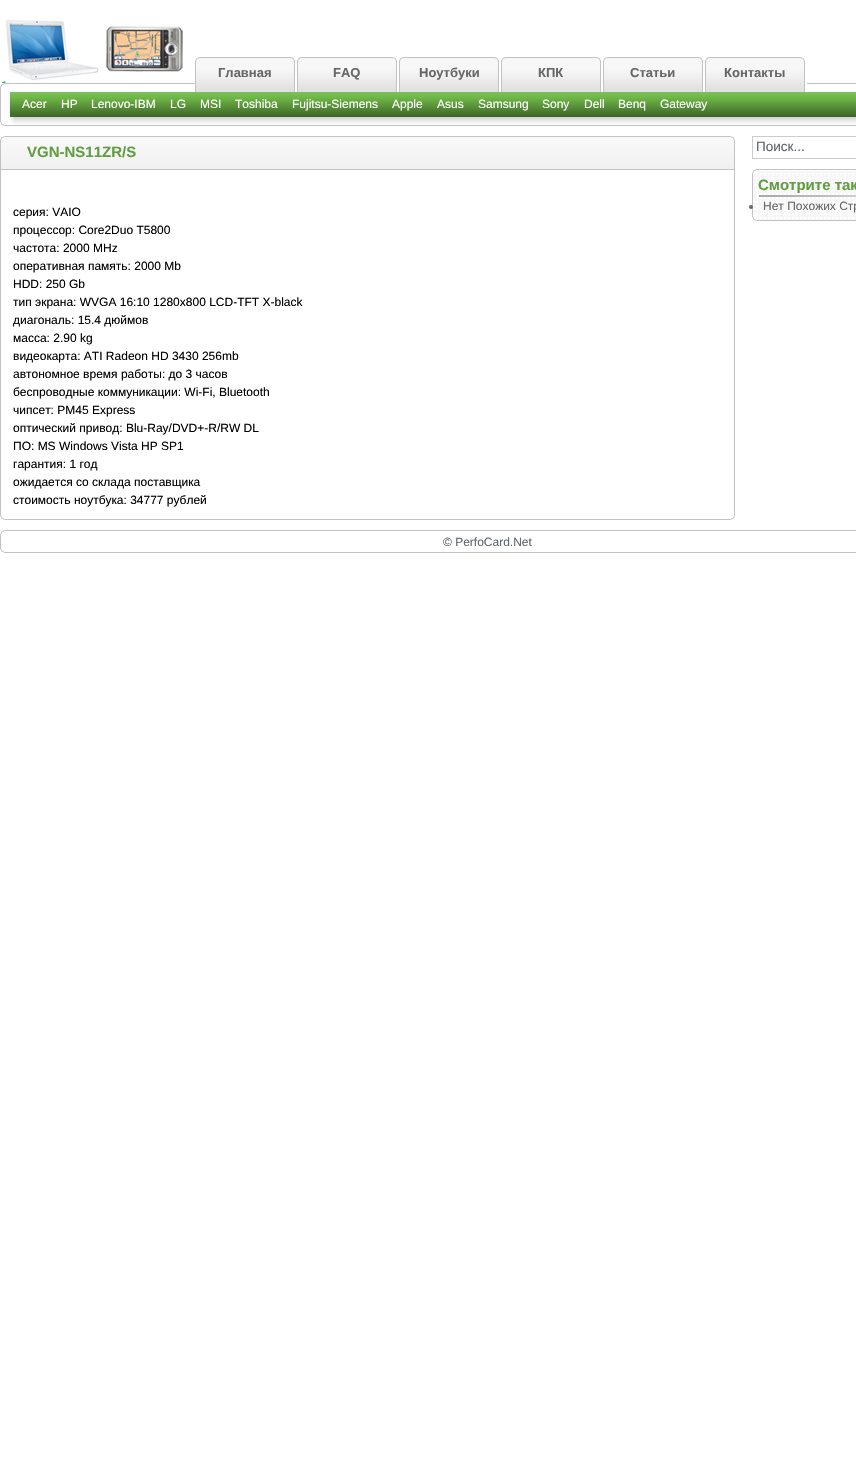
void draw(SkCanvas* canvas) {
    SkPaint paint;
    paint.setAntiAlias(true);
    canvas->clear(0xFFFFFFFF);
    canvas->drawImageRect(SkImages::DeferredFromEncodedData(SkData::MakeFromFileName("img1.png")), SkRect::MakeXYWH(2, 19, 181, 64), SkSamplingOptions());
    canvas->drawImageRect(SkImages::DeferredFromEncodedData(SkData::MakeFromFileName("img3.png")), SkRect::MakeXYWH(15, 83, 841, 43), SkSamplingOptions());
    paint.setColor(0xFFFFFFFF);
    canvas->drawRect(SkRect::MakeXYWH(295, 83, 512, 9), paint);
    canvas->drawImageRect(SkImages::DeferredFromEncodedData(SkData::MakeFromFileName("img2.png")), SkRect::MakeXYWH(195, 57, 100, 35), SkSamplingOptions());
    SkFont font1(fontMgr->matchFamilyStyle("Liberation Sans", SkFontStyle::Bold()), 13);
    font1.setSubpixel(true);
    paint.setColor(0xFF666666);
    canvas->drawString("Главная", 218, 77, font1, paint);
    canvas->drawImageRect(SkImages::DeferredFromEncodedData(SkData::MakeFromFileName("img2.png")), SkRect::MakeXYWH(297, 57, 100, 35), SkSamplingOptions());
    canvas->drawString("FAQ", 333, 77, font1, paint);
    canvas->drawImageRect(SkImages::DeferredFromEncodedData(SkData::MakeFromFileName("img2.png")), SkRect::MakeXYWH(399, 57, 100, 35), SkSamplingOptions());
    canvas->drawString("Ноутбуки", 419, 77, font1, paint);
    canvas->drawImageRect(SkImages::DeferredFromEncodedData(SkData::MakeFromFileName("img2.png")), SkRect::MakeXYWH(501, 57, 100, 35), SkSamplingOptions());
    canvas->drawString("КПК", 538, 77, font1, paint);
    canvas->drawImageRect(SkImages::DeferredFromEncodedData(SkData::MakeFromFileName("img2.png")), SkRect::MakeXYWH(603, 57, 100, 35), SkSamplingOptions());
    canvas->drawString("Статьи", 630, 77, font1, paint);
    canvas->drawImageRect(SkImages::DeferredFromEncodedData(SkData::MakeFromFileName("img2.png")), SkRect::MakeXYWH(705, 57, 100, 35), SkSamplingOptions());
    canvas->drawString("Контакты", 724, 77, font1, paint);
    canvas->drawImageRect(SkImages::DeferredFromEncodedData(SkData::MakeFromFileName("img4.png")), SkRect::MakeXYWH(0, 83, 15, 43), SkSamplingOptions());
    SkFont font2(fontMgr->matchFamilyStyle("Liberation Sans", SkFontStyle::Normal()), 12);
    font2.setSubpixel(true);
    paint.setColor(0xFFFFFFFF);
    canvas->drawString("Acer", 22, 108, font2, paint);
    canvas->drawString("HP", 61, 108, font2, paint);
    canvas->drawString("Lenovo-IBM", 91, 108, font2, paint);
    canvas->drawString("LG", 170, 108, font2, paint);
    canvas->drawString("MSI", 200, 108, font2, paint);
    canvas->drawString("Toshiba", 235, 108, font2, paint);
    canvas->drawString("Fujitsu-Siemens", 292, 108, font2, paint);
    canvas->drawString("Apple", 392, 108, font2, paint);
    canvas->drawString("Asus", 437, 108, font2, paint);
    canvas->drawString("Samsung", 478, 108, font2, paint);
    canvas->drawString("Sony", 542, 108, font2, paint);
    canvas->drawString("Dell", 584, 108, font2, paint);
    canvas->drawString("Benq", 618, 108, font2, paint);
    canvas->drawString("Gateway", 660, 108, font2, paint);
    canvas->drawImageRect(SkImages::DeferredFromEncodedData(SkData::MakeFromFileName("img5.png")), SkRect::MakeXYWH(1, 137, 733, 32), SkSamplingOptions());
    paint.setStyle(SkPaint::kStroke_Style);
    paint.setStrokeWidth(1);
    paint.setColor(0xFFC2C2C2);
    canvas->drawRect(SkRect::MakeXYWH(0.5f, 136.5f, 734, 33), paint);
    canvas->drawImageRect(SkImages::DeferredFromEncodedData(SkData::MakeFromFileName("img6.png")), SkRect::MakeXYWH(0, 136, 5, 5), SkSamplingOptions());
    canvas->drawImageRect(SkImages::DeferredFromEncodedData(SkData::MakeFromFileName("img7.png")), SkRect::MakeXYWH(730, 136, 5, 5), SkSamplingOptions());
    SkFont font3(fontMgr->matchFamilyStyle("Liberation Sans", SkFontStyle::Bold()), 15);
    font3.setSubpixel(true);
    paint.setStyle(SkPaint::kFill_Style);
    paint.setColor(0xFF619E41);
    canvas->drawString("VGN-NS11ZR/S", 27, 157, font3, paint);
    paint.setColor(0xFFC2C2C2);
    canvas->drawRect(SkRect::MakeXYWH(734, 170, 1, 350), paint);
    canvas->drawRect(SkRect::MakeXYWH(0, 519, 735, 1), paint);
    canvas->drawRect(SkRect::MakeXYWH(0, 170, 1, 350), paint);
    paint.setColor(0xFF000000);
    canvas->drawString("серия: VAIO", 13, 216, font2, paint);
    canvas->drawString("процессор: Core2Duo T5800", 13, 234, font2, paint);
    canvas->drawString("частота: 2000 MHz", 13, 252, font2, paint);
    canvas->drawString("оперативная память: 2000 Mb", 13, 270, font2, paint);
    canvas->drawString("HDD: 250 Gb", 13, 288, font2, paint);
    canvas->drawString("тип экрана: WVGA 16:10 1280x800 LCD-TFT X-black", 13, 306, font2, paint);
    canvas->drawString("диагональ: 15.4 дюймов", 13, 324, font2, paint);
    canvas->drawString("масса: 2.90 kg", 13, 342, font2, paint);
    canvas->drawString("видеокарта: ATI Radeon HD 3430 256mb", 13, 360, font2, paint);
    canvas->drawString("автономное время работы: до 3 часов", 13, 378, font2, paint);
    canvas->drawString("беспроводные коммуникации: Wi-Fi, Bluetooth", 13, 396, font2, paint);
    canvas->drawString("чипсет: PM45 Express", 13, 414, font2, paint);
    canvas->drawString("оптический привод: Blu-Ray/DVD+-R/RW DL", 13, 432, font2, paint);
    canvas->drawString("ПО: MS Windows Vista HP SP1", 13, 450, font2, paint);
    canvas->drawString("гарантия: 1 год", 13, 468, font2, paint);
    canvas->drawString("ожидается со склада поставщика", 13, 486, font2, paint);
    canvas->drawString("стоимость ноутбука: 34777 рублей", 13, 504, font2, paint);
    canvas->drawImageRect(SkImages::DeferredFromEncodedData(SkData::MakeFromFileName("img8.png")), SkRect::MakeXYWH(0, 515, 5, 5), SkSamplingOptions());
    canvas->drawImageRect(SkImages::DeferredFromEncodedData(SkData::MakeFromFileName("img9.png")), SkRect::MakeXYWH(730, 515, 5, 5), SkSamplingOptions());
    paint.setStyle(SkPaint::kStroke_Style);
    paint.setColor(0xFFCCCCCC);
    canvas->drawRect(SkRect::MakeXYWH(752.5f, 136.5f, 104, 22), paint);
    SkFont font4(fontMgr->matchFamilyStyle("Liberation Sans", SkFontStyle::Normal()), 13.5f);
    font4.setSubpixel(true);
    paint.setStyle(SkPaint::kFill_Style);
    paint.setColor(0xFF5E656D);
    canvas->drawString("Поиск...", 756, 151, font4, paint);
    canvas->drawImageRect(SkImages::DeferredFromEncodedData(SkData::MakeFromFileName("img10.png")), SkRect::MakeXYWH(753, 170, 103, 50), SkSamplingOptions());
    canvas->drawImageRect(SkImages::DeferredFromEncodedData(SkData::MakeFromFileName("img11.png")), SkRect::MakeXYWH(752, 169, 6, 6), SkSamplingOptions());
    paint.setColor(0xFFC2C2C2);
    canvas->drawRect(SkRect::MakeXYWH(758, 169, 98, 1), paint);
    canvas->drawRect(SkRect::MakeXYWH(752, 175, 1, 40), paint);
    paint.setColor(0xFF619E41);
    canvas->drawString("Смотрите так", 758, 190, font3, paint);
    canvas->drawImageRect(SkImages::DeferredFromEncodedData(SkData::MakeFromFileName("img12.png")), SkRect::MakeXYWH(759, 195, 97, 2), SkSamplingOptions());
    paint.setColor(0xFF666666);
    canvas->drawCircle(751, 207, 2, paint);
    canvas->drawString("Нет Похожих Стр", 763, 210, font2, paint);
    canvas->drawImageRect(SkImages::DeferredFromEncodedData(SkData::MakeFromFileName("img13.png")), SkRect::MakeXYWH(752, 215, 6, 6), SkSamplingOptions());
    paint.setColor(0xFFC2C2C2);
    canvas->drawRect(SkRect::MakeXYWH(758, 220, 98, 1), paint);
    paint.setStyle(SkPaint::kStroke_Style);
    canvas->drawRect(SkRect::MakeXYWH(0.5f, 530.5f, 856, 22), paint);
    canvas->drawImageRect(SkImages::DeferredFromEncodedData(SkData::MakeFromFileName("img14.png")), SkRect::MakeXYWH(0, 530, 5, 5), SkSamplingOptions());
    paint.setStyle(SkPaint::kFill_Style);
    paint.setColor(0xFF5E656D);
    canvas->drawString("© PerfoCard.Net", 443, 546, font2, paint);
    canvas->drawImageRect(SkImages::DeferredFromEncodedData(SkData::MakeFromFileName("img8.png")), SkRect::MakeXYWH(0, 548, 5, 5), SkSamplingOptions());
}
